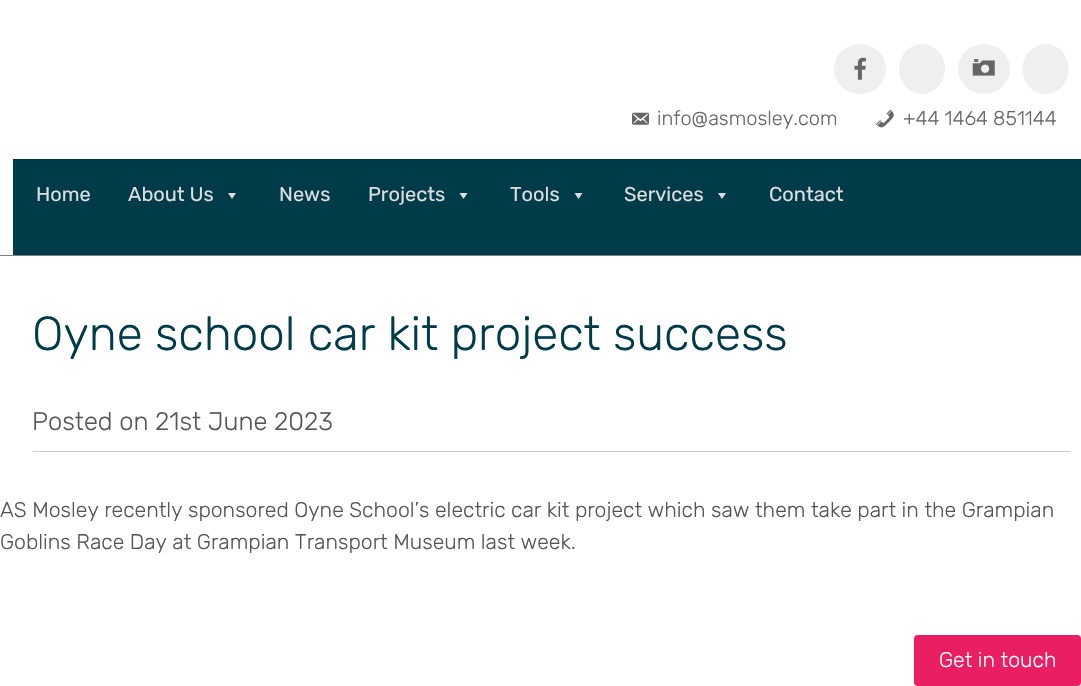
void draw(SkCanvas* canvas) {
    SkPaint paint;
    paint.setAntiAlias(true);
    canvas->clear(0xFFFFFFFF);
    paint.setColor(0xFF808080);
    canvas->drawRect(SkRect::MakeXYWH(0, 255, 1081, 1), paint);
    paint.setColor(0xFFEFEFEF);
    canvas->drawOval(SkRect::MakeXYWH(834, 44, 52, 50), paint);
    canvas->drawImageRect(SkImages::DeferredFromEncodedData(SkData::MakeFromFileName("img1.png")), SkRect::MakeXYWH(854, 57, 12, 23), SkSamplingOptions());
    canvas->drawOval(SkRect::MakeXYWH(899, 44, 46, 50), paint);
    canvas->drawOval(SkRect::MakeXYWH(958, 44, 52, 50), paint);
    canvas->drawImageRect(SkImages::DeferredFromEncodedData(SkData::MakeFromFileName("img2.png")), SkRect::MakeXYWH(972, 59, 23, 17), SkSamplingOptions());
    canvas->drawOval(SkRect::MakeXYWH(1022.5f, 44, 46, 50), paint);
    canvas->drawImageRect(SkImages::DeferredFromEncodedData(SkData::MakeFromFileName("img3.png")), SkRect::MakeXYWH(632, 112, 17, 13), SkSamplingOptions());
    SkFont font1(fontMgr->matchFamilyStyle("Rubik", SkFontStyle(300, SkFontStyle::kNormal_Width, SkFontStyle::kUpright_Slant)), 20);
    font1.setSubpixel(true);
    paint.setColor(0xFF666666);
    canvas->drawString("info@asmosley.com", 657, 125, font1, paint);
    canvas->drawImageRect(SkImages::DeferredFromEncodedData(SkData::MakeFromFileName("img4.png")), SkRect::MakeXYWH(876, 109, 18, 19), SkSamplingOptions());
    canvas->drawString("+44 1464 851144", 903, 125, font1, paint);
    paint.setColor(0xFF003B4A);
    canvas->drawRect(SkRect::MakeXYWH(13, 159, 1068, 96), paint);
    SkFont font2(fontMgr->matchFamilyStyle("Rubik", SkFontStyle::Normal()), 20);
    font2.setSubpixel(true);
    paint.setColor(0xFFDDDDDD);
    canvas->drawString("Home", 36, 201, font2, paint);
    canvas->drawString("About Us", 128, 201, font2, paint);
    canvas->drawPath(SkPathBuilder().moveTo(236, 193).lineTo(232, 199).lineTo(228, 193).close().detach(), paint);
    canvas->drawString("News", 279, 201, font2, paint);
    canvas->drawString("Projects", 368, 201, font2, paint);
    canvas->drawPath(SkPathBuilder().moveTo(467.5f, 193).lineTo(463.5f, 199).lineTo(459.5f, 193).close().detach(), paint);
    canvas->drawString("Tools", 510, 201, font2, paint);
    canvas->drawPath(SkPathBuilder().moveTo(582.5f, 193).lineTo(578.5f, 199).lineTo(574.5f, 193).close().detach(), paint);
    canvas->drawString("Services", 624, 201, font2, paint);
    canvas->drawPath(SkPathBuilder().moveTo(726, 193).lineTo(722, 199).lineTo(718, 193).close().detach(), paint);
    canvas->drawString("Contact", 769, 201, font2, paint);
    SkFont font3(fontMgr->matchFamilyStyle("Rubik", SkFontStyle(300, SkFontStyle::kNormal_Width, SkFontStyle::kUpright_Slant)), 47.5f);
    font3.setSubpixel(true);
    paint.setColor(0xFF003B4A);
    canvas->drawString("Oyne school car kit project success", 32, 350, font3, paint);
    SkFont font4(fontMgr->matchFamilyStyle("Rubik", SkFontStyle(300, SkFontStyle::kNormal_Width, SkFontStyle::kUpright_Slant)), 25.5f);
    font4.setSubpixel(true);
    paint.setColor(0xFF555555);
    canvas->drawString("Posted on 21st June 2023", 32, 430, font4, paint);
    paint.setColor(0xFFCCCCCC);
    canvas->drawRect(SkRect::MakeXYWH(33, 451, 1037, 1), paint);
    SkFont font5(fontMgr->matchFamilyStyle("Rubik", SkFontStyle(300, SkFontStyle::kNormal_Width, SkFontStyle::kUpright_Slant)), 21.25f);
    font5.setSubpixel(true);
    paint.setColor(0xFF555555);
    canvas->drawString("AS Mosley recently sponsored Oyne School’s electric car kit project which saw them take part in the Grampian", 0, 517, font5, paint);
    canvas->drawString("Goblins Race Day at Grampian Transport Museum last week.", 0, 549, font5, paint);
    paint.setColor(0xFFE91E63);
    canvas->drawRoundRect(SkRect::MakeXYWH(914, 635, 167, 51), 4, 4, paint);
    paint.setColor(0xFFFFFFFF);
    canvas->drawString("Get in touch", 939, 667, font5, paint);
}
